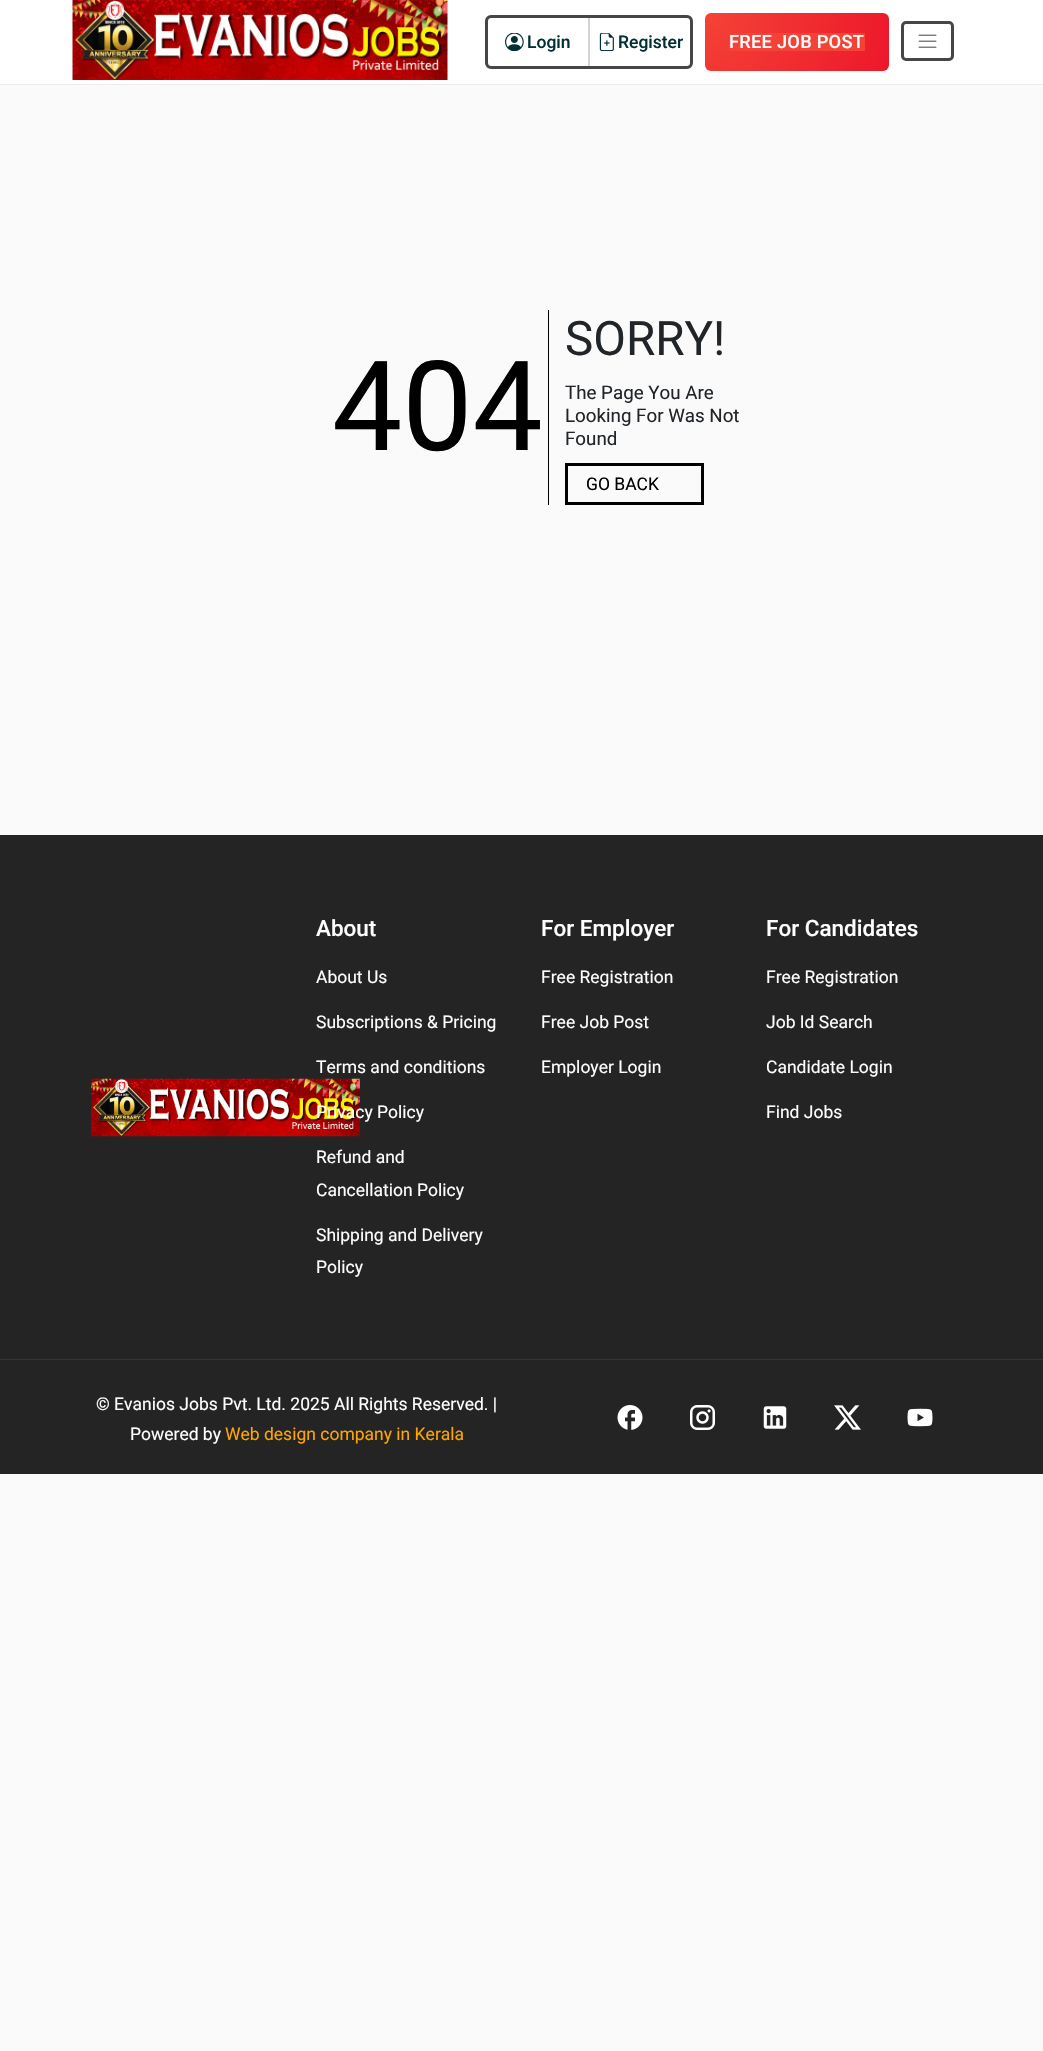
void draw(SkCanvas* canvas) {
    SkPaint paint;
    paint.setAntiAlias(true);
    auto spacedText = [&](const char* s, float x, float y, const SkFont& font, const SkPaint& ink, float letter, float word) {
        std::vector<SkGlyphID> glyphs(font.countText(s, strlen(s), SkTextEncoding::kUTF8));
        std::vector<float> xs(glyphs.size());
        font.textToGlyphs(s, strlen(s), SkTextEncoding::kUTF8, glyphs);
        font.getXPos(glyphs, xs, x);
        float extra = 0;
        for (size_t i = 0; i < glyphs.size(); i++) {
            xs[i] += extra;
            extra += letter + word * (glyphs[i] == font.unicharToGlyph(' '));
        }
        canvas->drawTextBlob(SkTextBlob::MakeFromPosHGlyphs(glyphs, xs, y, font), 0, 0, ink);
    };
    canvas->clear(0xFFFAFAFA);
    paint.setColor(0xFFFFFFFF);
    canvas->drawRect(SkRect::MakeXYWH(0, 0, 1043, 84), paint);
    canvas->drawImageRect(SkImages::DeferredFromEncodedData(SkData::MakeFromFileName("img1.png")), SkRect::MakeXYWH(72, 0, 376, 80), SkSamplingOptions());
    paint.setColor(0xFFD5D5D5);
    canvas->drawRoundRect(SkRect::MakeXYWH(486.5f, 16.5f, 205, 51), 4.5f, 4.5f, paint);
    paint.setStyle(SkPaint::kStroke_Style);
    paint.setStrokeWidth(3);
    paint.setColor(0xFF464646);
    canvas->drawRoundRect(SkRect::MakeXYWH(486.5f, 16.5f, 205, 51), 4.5f, 4.5f, paint);
    paint.setStyle(SkPaint::kFill_Style);
    paint.setColor(0xFFFFFFFF);
    canvas->drawPath(SkPathBuilder().moveTo(492, 18).lineTo(588, 18).lineTo(588, 66).lineTo(492, 66).cubicTo(490, 66, 488, 64, 488, 62).lineTo(488, 22).cubicTo(488, 20, 490, 18, 492, 18).close().detach(), paint);
    canvas->drawImageRect(SkImages::DeferredFromEncodedData(SkData::MakeFromFileName("img2.png")), SkRect::MakeXYWH(505, 33, 19, 18), SkSamplingOptions());
    SkFont font1(fontMgr->matchFamilyStyle("Roboto", SkFontStyle(500, SkFontStyle::kNormal_Width, SkFontStyle::kUpright_Slant)), 17.5f);
    font1.setSubpixel(true);
    paint.setColor(0xFF002F34);
    canvas->drawString("Login", 527, 48, font1, paint);
    paint.setColor(0xFFFFFFFF);
    canvas->drawPath(SkPathBuilder().moveTo(590, 18).lineTo(686, 18).cubicTo(688, 18, 690, 20, 690, 22).lineTo(690, 62).cubicTo(690, 64, 688, 66, 686, 66).lineTo(590, 66).close().detach(), paint);
    canvas->drawImageRect(SkImages::DeferredFromEncodedData(SkData::MakeFromFileName("img3.png")), SkRect::MakeXYWH(599, 33, 15, 18), SkSamplingOptions());
    paint.setColor(0xFF002F34);
    canvas->drawString("Register", 618, 48, font1, paint);
    {
        const SkColor colors[] = {0xFFF44336, 0xFFED182B};
        const float stops[] = {0, 1};
        paint.setShader(SkGradientShader::MakeRadial({705, 13}, 193, colors, stops, 2, SkTileMode::kClamp));
        paint.setAlpha(255);
    }
    canvas->drawRoundRect(SkRect::MakeXYWH(705, 13, 184, 58), 6, 6, paint);
    paint.setShader(nullptr);
    paint.setColor(0xFFF44336);
    canvas->drawRect(SkRect::MakeXYWH(729, 33, 136, 18), paint);
    SkFont font2(fontMgr->matchFamilyStyle("Roboto", SkFontStyle(500, SkFontStyle::kNormal_Width, SkFontStyle::kUpright_Slant)), 18.25f);
    font2.setSubpixel(true);
    paint.setColor(0xFFFFFFFF);
    spacedText("FREE JOB POST", 729, 48, font2, paint, 0.25f, 0);
    paint.setStyle(SkPaint::kStroke_Style);
    paint.setColor(0xFF464646);
    canvas->drawRoundRect(SkRect::MakeXYWH(902.5f, 22.5f, 50, 37), 3.5f, 3.5f, paint);
    canvas->drawImageRect(SkImages::DeferredFromEncodedData(SkData::MakeFromFileName("img4.png")), SkRect::MakeXYWH(918, 34, 19, 14), SkSamplingOptions());
    paint.setStyle(SkPaint::kFill_Style);
    paint.setColor(0xFFEBEBEB);
    canvas->drawRect(SkRect::MakeXYWH(0, 84, 1043, 1), paint);
    SkFont font3(fontMgr->matchFamilyStyle("Roboto", SkFontStyle::Normal()), 125);
    font3.setSubpixel(true);
    paint.setColor(0xFF000000);
    canvas->drawString("404", 332, 450, font3, paint);
    canvas->drawRect(SkRect::MakeXYWH(548, 310, 1, 195), paint);
    SkFont font4(fontMgr->matchFamilyStyle("Roboto", SkFontStyle::Normal()), 47.5f);
    font4.setSubpixel(true);
    paint.setColor(0xFF212529);
    canvas->drawString("SORRY!", 565, 355, font4, paint);
    SkFont font5(fontMgr->matchFamilyStyle("Roboto", SkFontStyle::Normal()), 18.75f);
    font5.setSubpixel(true);
    canvas->drawString("The Page You Are", 565, 399, font5, paint);
    canvas->drawString("Looking For Was Not", 565, 422, font5, paint);
    canvas->drawString("Found", 565, 445, font5, paint);
    paint.setStyle(SkPaint::kStroke_Style);
    paint.setColor(0xFF000000);
    canvas->drawRect(SkRect::MakeXYWH(566.5f, 464.5f, 136, 39), paint);
    SkFont font6(fontMgr->matchFamilyStyle("Roboto", SkFontStyle::Normal()), 17.5f);
    font6.setSubpixel(true);
    paint.setStyle(SkPaint::kFill_Style);
    canvas->drawString("GO BACK", 586, 490, font6, paint);
    paint.setColor(0xFF242424);
    canvas->drawRect(SkRect::MakeXYWH(0, 835, 1043, 639), paint);
    canvas->drawImageRect(SkImages::DeferredFromEncodedData(SkData::MakeFromFileName("img5.png")), SkRect::MakeXYWH(91, 1078, 269, 59), SkSamplingOptions());
    SkFont font7(fontMgr->matchFamilyStyle("Roboto", SkFontStyle(500, SkFontStyle::kNormal_Width, SkFontStyle::kUpright_Slant)), 22.5f);
    font7.setSubpixel(true);
    paint.setColor(0xFFFFFFFF);
    canvas->drawString("About", 316, 936, font7, paint);
    canvas->drawString("About Us", 316, 983, font6, paint);
    canvas->drawString("Subscriptions & Pricing", 316, 1028, font6, paint);
    canvas->drawString("Terms and conditions", 316, 1073, font6, paint);
    canvas->drawString("Privacy Policy", 316, 1118, font6, paint);
    canvas->drawString("Refund and", 316, 1163, font6, paint);
    canvas->drawString("Cancellation Policy", 316, 1196, font6, paint);
    canvas->drawString("Shipping and Delivery", 316, 1241, font6, paint);
    canvas->drawString("Policy", 316, 1273, font6, paint);
    canvas->drawString("For Employer", 541, 936, font7, paint);
    canvas->drawString("Free Registration", 541, 983, font6, paint);
    canvas->drawString("Free Job Post", 541, 1028, font6, paint);
    canvas->drawString("Employer Login", 541, 1073, font6, paint);
    canvas->drawString("For Candidates", 766, 936, font7, paint);
    canvas->drawString("Free Registration", 766, 983, font6, paint);
    canvas->drawString("Job Id Search", 766, 1028, font6, paint);
    canvas->drawString("Candidate Login", 766, 1073, font6, paint);
    canvas->drawString("Find Jobs", 766, 1118, font6, paint);
    paint.setColor(0xFF353535);
    canvas->drawRect(SkRect::MakeXYWH(0, 1359, 1043, 1), paint);
    paint.setColor(0xFFFFFFFF);
    canvas->drawString("© Evanios Jobs Pvt. Ltd. 2025 All Rights Reserved. |", 96, 1410, font6, paint);
    canvas->drawString("Powered by", 130, 1440, font6, paint);
    paint.setColor(0xFFFFA500);
    canvas->drawString("Web design company in Kerala", 225, 1440, font6, paint);
    canvas->drawImageRect(SkImages::DeferredFromEncodedData(SkData::MakeFromFileName("img6.png")), SkRect::MakeXYWH(617, 1405, 26, 25), SkSamplingOptions());
    canvas->drawImageRect(SkImages::DeferredFromEncodedData(SkData::MakeFromFileName("img7.png")), SkRect::MakeXYWH(690, 1405, 25, 25), SkSamplingOptions());
    canvas->drawImageRect(SkImages::DeferredFromEncodedData(SkData::MakeFromFileName("img8.png")), SkRect::MakeXYWH(763, 1406, 24, 23), SkSamplingOptions());
    canvas->drawImageRect(SkImages::DeferredFromEncodedData(SkData::MakeFromFileName("img9.png")), SkRect::MakeXYWH(834, 1405, 27, 25), SkSamplingOptions());
    canvas->drawImageRect(SkImages::DeferredFromEncodedData(SkData::MakeFromFileName("img10.png")), SkRect::MakeXYWH(907, 1408, 26, 19), SkSamplingOptions());
}
